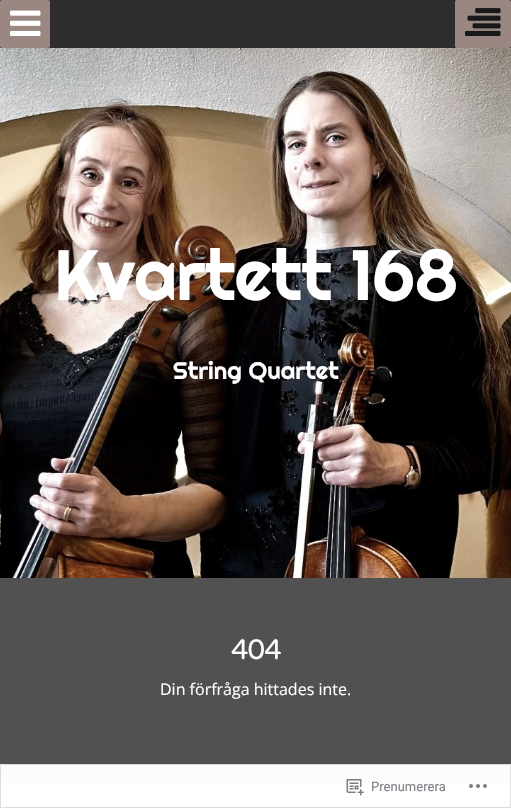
void draw(SkCanvas* canvas) {
    SkPaint paint;
    paint.setAntiAlias(true);
    auto spacedText = [&](const char* s, float x, float y, const SkFont& font, const SkPaint& ink, float letter, float word) {
        std::vector<SkGlyphID> glyphs(font.countText(s, strlen(s), SkTextEncoding::kUTF8));
        std::vector<float> xs(glyphs.size());
        font.textToGlyphs(s, strlen(s), SkTextEncoding::kUTF8, glyphs);
        font.getXPos(glyphs, xs, x);
        float extra = 0;
        for (size_t i = 0; i < glyphs.size(); i++) {
            xs[i] += extra;
            extra += letter + word * (glyphs[i] == font.unicharToGlyph(' '));
        }
        canvas->drawTextBlob(SkTextBlob::MakeFromPosHGlyphs(glyphs, xs, y, font), 0, 0, ink);
    };
    canvas->clear(0xFF2D2D2D);
    paint.setColor(0xFF9A8781);
    canvas->drawRoundRect(SkRect::MakeXYWH(0, 0, 50, 48), 2, 2, paint);
    canvas->drawImageRect(SkImages::DeferredFromEncodedData(SkData::MakeFromFileName("img1.png")), SkRect::MakeXYWH(10, 10, 31, 26), SkSamplingOptions());
    canvas->drawRoundRect(SkRect::MakeXYWH(455, 0, 56, 48), 2, 2, paint);
    canvas->drawImageRect(SkImages::DeferredFromEncodedData(SkData::MakeFromFileName("img2.png")), SkRect::MakeXYWH(465, 8, 36, 28), SkSamplingOptions());
    canvas->drawImageRect(SkImages::DeferredFromEncodedData(SkData::MakeFromFileName("img3.png")), SkRect::MakeXYWH(0, 48, 511, 530), SkSamplingOptions());
    SkFont font1(fontMgr->matchFamilyStyle("Righteous", SkFontStyle::Normal()), 71);
    font1.setSubpixel(true);
    paint.setColor(0xFFFFFFFF);
    spacedText("Kvartett 168", 54, 300, font1, paint, -1, 0);
    SkFont font2(fontMgr->matchFamilyStyle("Righteous", SkFontStyle::Normal()), 24);
    font2.setSubpixel(true);
    canvas->drawString("String Quartet", 173, 379, font2, paint);
    canvas->drawRect(SkRect::MakeXYWH(0, 783, 511, 25), paint);
    paint.setColor(0xFF515151);
    canvas->drawRect(SkRect::MakeXYWH(0, 578, 511, 186), paint);
    paint.setColor(0xFFFCFCFC);
    canvas->drawRect(SkRect::MakeXYWH(0, 764, 511, 19), paint);
    SkFont font3(fontMgr->matchFamilyStyle("Varela Round", SkFontStyle::Normal()), 28);
    font3.setSubpixel(true);
    paint.setColor(0xFFFFFFFF);
    spacedText("404", 231, 659, font3, paint, -1, 0);
    SkFont font4(fontMgr->matchFamilyStyle("Open Sans", SkFontStyle::Normal()), 16);
    font4.setSubpixel(true);
    canvas->drawString("Din förfråga hittades inte.", 160, 695, font4, paint);
    paint.setStyle(SkPaint::kStroke_Style);
    paint.setStrokeWidth(1);
    paint.setColor(0xFADCDCDE);
    canvas->drawRect(SkRect::MakeXYWH(0.5f, 764.5f, 510, 43), paint);
    canvas->drawImageRect(SkImages::DeferredFromEncodedData(SkData::MakeFromFileName("img4.png")), SkRect::MakeXYWH(346, 779, 18, 17), SkSamplingOptions());
    SkFont font5(fontMgr->matchFamilyStyle("Roboto", SkFontStyle::Normal()), 13);
    font5.setSubpixel(true);
    paint.setStyle(SkPaint::kFill_Style);
    paint.setColor(0xFF7B7F84);
    canvas->drawString("Prenumerera", 371, 791, font5, paint);
    canvas->drawImageRect(SkImages::DeferredFromEncodedData(SkData::MakeFromFileName("img5.png")), SkRect::MakeXYWH(469, 784, 18, 4), SkSamplingOptions());
}
